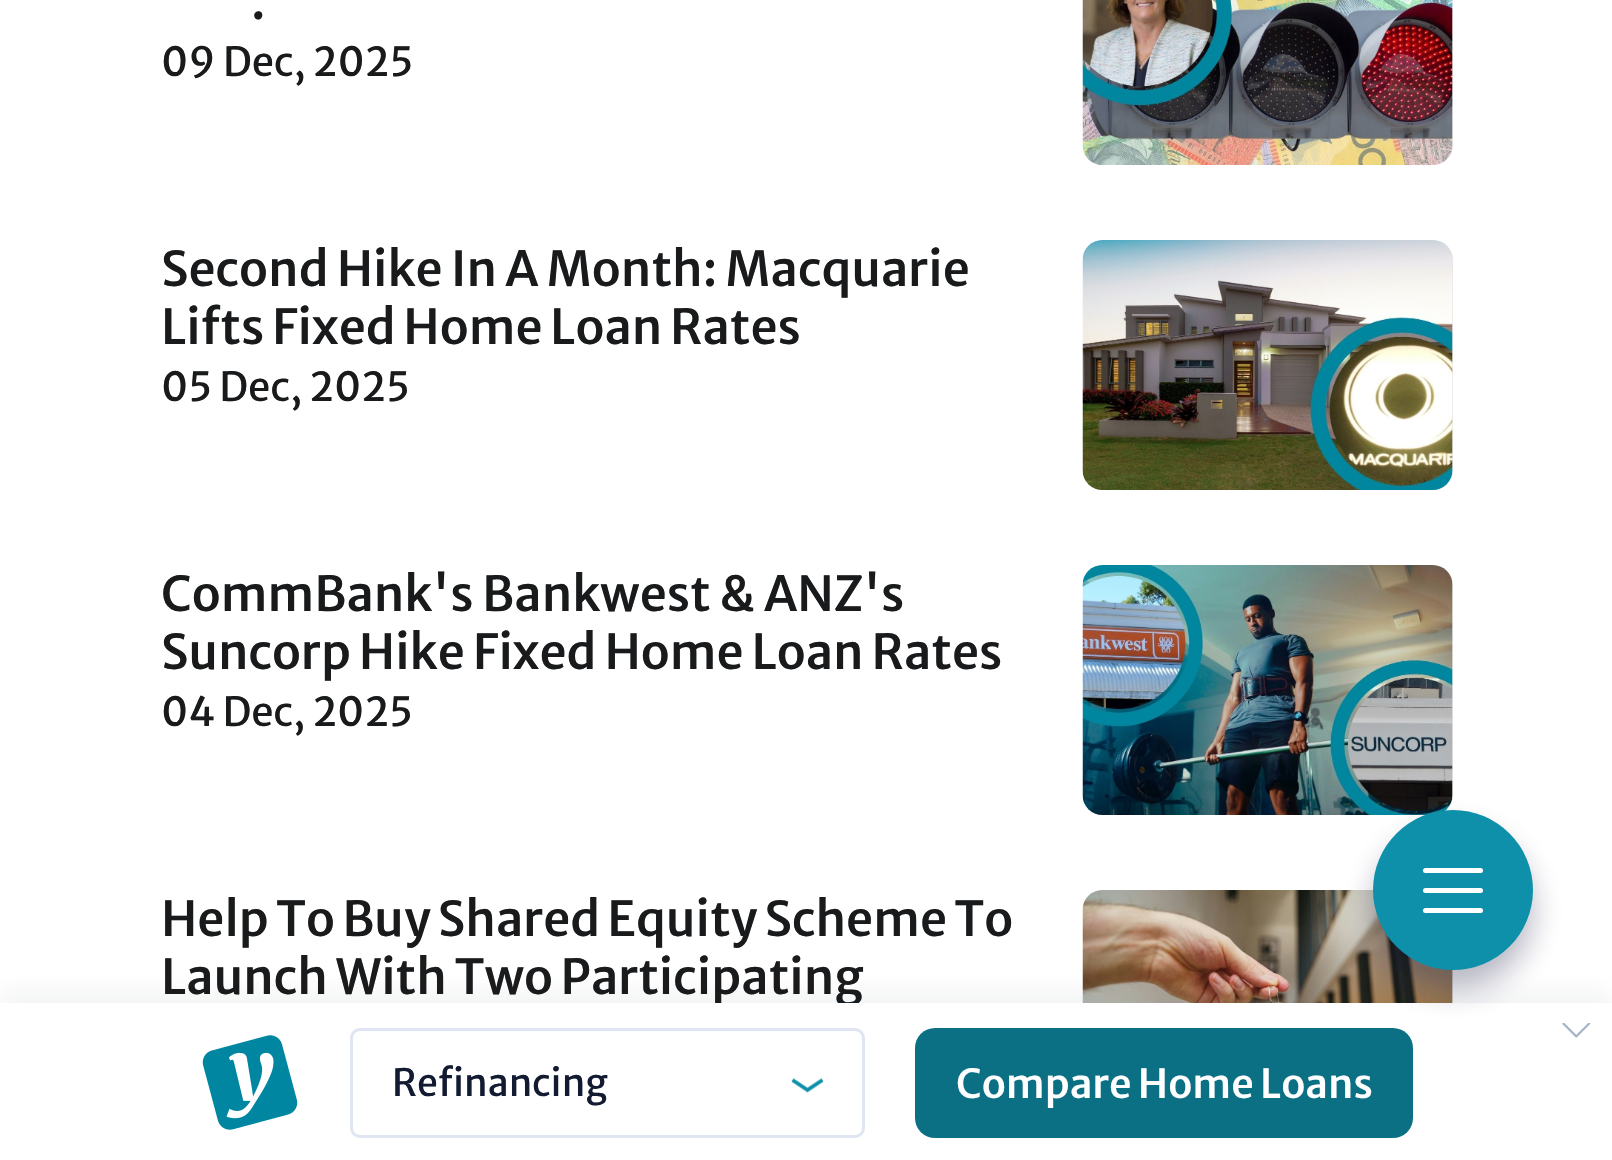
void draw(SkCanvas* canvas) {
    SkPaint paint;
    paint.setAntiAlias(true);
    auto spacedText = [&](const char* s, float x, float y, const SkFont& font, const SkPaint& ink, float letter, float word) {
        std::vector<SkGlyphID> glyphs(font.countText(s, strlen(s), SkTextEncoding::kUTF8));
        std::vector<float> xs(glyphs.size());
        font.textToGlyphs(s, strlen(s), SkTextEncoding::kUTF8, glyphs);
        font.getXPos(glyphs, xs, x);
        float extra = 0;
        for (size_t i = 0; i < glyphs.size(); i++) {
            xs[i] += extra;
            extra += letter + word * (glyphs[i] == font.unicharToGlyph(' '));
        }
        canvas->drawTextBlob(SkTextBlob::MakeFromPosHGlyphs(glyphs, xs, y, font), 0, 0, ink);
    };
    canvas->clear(0xFFFFFFFF);
    SkFont font1(fontMgr->matchFamilyStyle("Merriweather Sans", SkFontStyle(500, SkFontStyle::kNormal_Width, SkFontStyle::kUpright_Slant)), 48);
    font1.setSubpixel(true);
    paint.setColor(0xFF181A1B);
    canvas->drawString(".", 251, 19, font1, paint);
    SkFont font2(fontMgr->matchFamilyStyle("Merriweather Sans", SkFontStyle::Normal()), 40);
    font2.setSubpixel(true);
    canvas->drawString("09 Dec, 2025", 161, 76, font2, paint);
    paint.setColor(0xFFE7E7E7);
    canvas->drawRoundRect(SkRect::MakeXYWH(1083, -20, 370, 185), 20, 20, paint);
    canvas->drawImageRect(SkImages::DeferredFromEncodedData(SkData::MakeFromFileName("img1.png")), SkRect::MakeXYWH(1082, 0, 371, 165), SkSamplingOptions());
    paint.setColor(0xFF181A1B);
    spacedText("Second Hike In A Month: Macquarie", 161, 286, font1, paint, 0, -0.5f);
    spacedText("Lifts Fixed Home Loan Rates", 161, 344, font1, paint, 0, -1);
    canvas->drawString("05 Dec, 2025", 161, 401, font2, paint);
    paint.setColor(0xFFE7E7E7);
    canvas->drawRoundRect(SkRect::MakeXYWH(1083, 240, 370, 250), 20, 20, paint);
    canvas->drawImageRect(SkImages::DeferredFromEncodedData(SkData::MakeFromFileName("img2.png")), SkRect::MakeXYWH(1082, 240, 371, 250), SkSamplingOptions());
    paint.setColor(0xFF181A1B);
    canvas->drawString("CommBank's Bankwest & ANZ's", 161, 611, font1, paint);
    spacedText("Suncorp Hike Fixed Home Loan Rates", 161, 669, font1, paint, 0, -0.75f);
    canvas->drawString("04 Dec, 2025", 161, 726, font2, paint);
    paint.setColor(0xFFE7E7E7);
    canvas->drawRoundRect(SkRect::MakeXYWH(1083, 565, 370, 250), 20, 20, paint);
    canvas->drawImageRect(SkImages::DeferredFromEncodedData(SkData::MakeFromFileName("img3.png")), SkRect::MakeXYWH(1082, 565, 371, 250), SkSamplingOptions());
    paint.setColor(0xFF181A1B);
    spacedText("Help To Buy Shared Equity Scheme To", 161, 936, font1, paint, 0, -1.5f);
    spacedText("Launch With Two Participating", 161, 994, font1, paint, 0, -1);
    paint.setColor(0xFFE7E7E7);
    canvas->drawRoundRect(SkRect::MakeXYWH(1083, 890, 370, 250), 20, 20, paint);
    canvas->drawImageRect(SkImages::DeferredFromEncodedData(SkData::MakeFromFileName("img4.png")), SkRect::MakeXYWH(1082, 890, 371, 113), SkSamplingOptions());
    paint.setColor(0x0F131B32);
    paint.setMaskFilter(SkMaskFilter::MakeBlur(kNormal_SkBlurStyle, 12.5f));
    canvas->drawRect(SkRect::MakeXYWH(0, 993, 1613, 157), paint);
    paint.setMaskFilter(nullptr);
    paint.setColor(0xFFFFFFFF);
    canvas->drawRect(SkRect::MakeXYWH(0, 1003, 1612, 157), paint);
    canvas->drawImageRect(SkImages::DeferredFromEncodedData(SkData::MakeFromFileName("img5.png")), SkRect::MakeXYWH(1562, 1023, 29, 15), SkSamplingOptions());
    paint.setColor(0xFF0B7084);
    canvas->drawRoundRect(SkRect::MakeXYWH(915, 1028, 498, 110), 20, 20, paint);
    paint.setColor(0x4D151440);
    paint.setMaskFilter(SkMaskFilter::MakeBlur(kNormal_SkBlurStyle, 15));
    canvas->drawRoundRect(SkRect::MakeXYWH(1373, 830, 160, 160), 80, 80, paint);
    paint.setMaskFilter(nullptr);
    paint.setColor(0xFF0E90AA);
    canvas->drawCircle(1453, 890, 80, paint);
    paint.setColor(0xFFFFFFFF);
    canvas->drawRoundRect(SkRect::MakeXYWH(1423, 868, 60, 5), 2.5f, 2.5f, paint);
    canvas->drawRoundRect(SkRect::MakeXYWH(1423, 888, 60, 5), 2.5f, 2.5f, paint);
    canvas->drawRoundRect(SkRect::MakeXYWH(1423, 908, 60, 5), 2.5f, 2.5f, paint);
    canvas->drawImageRect(SkImages::DeferredFromEncodedData(SkData::MakeFromFileName("img6.png")), SkRect::MakeXYWH(202, 1035, 96, 95), SkSamplingOptions());
    paint.setStyle(SkPaint::kStroke_Style);
    paint.setStrokeWidth(3);
    paint.setColor(0xFFE0E5F3);
    canvas->drawRoundRect(SkRect::MakeXYWH(351.5f, 1029.5f, 512, 107), 8.5f, 8.5f, paint);
    SkFont font3(fontMgr->matchFamilyStyle("Merriweather Sans", SkFontStyle::Normal()), 37.5f);
    font3.setSubpixel(true);
    paint.setStyle(SkPaint::kFill_Style);
    paint.setColor(0xFF131B32);
    canvas->drawString("Refinancing", 392, 1096, font3, paint);
    canvas->drawImageRect(SkImages::DeferredFromEncodedData(SkData::MakeFromFileName("img7.png")), SkRect::MakeXYWH(791, 1078, 33, 15), SkSamplingOptions());
    SkFont font4(fontMgr->matchFamilyStyle("Merriweather Sans", SkFontStyle(500, SkFontStyle::kNormal_Width, SkFontStyle::kUpright_Slant)), 40);
    font4.setSubpixel(true);
    paint.setColor(0xFFFFFFFF);
    spacedText("Compare Home Loans", 956, 1098, font4, paint, 0, -1);
}
